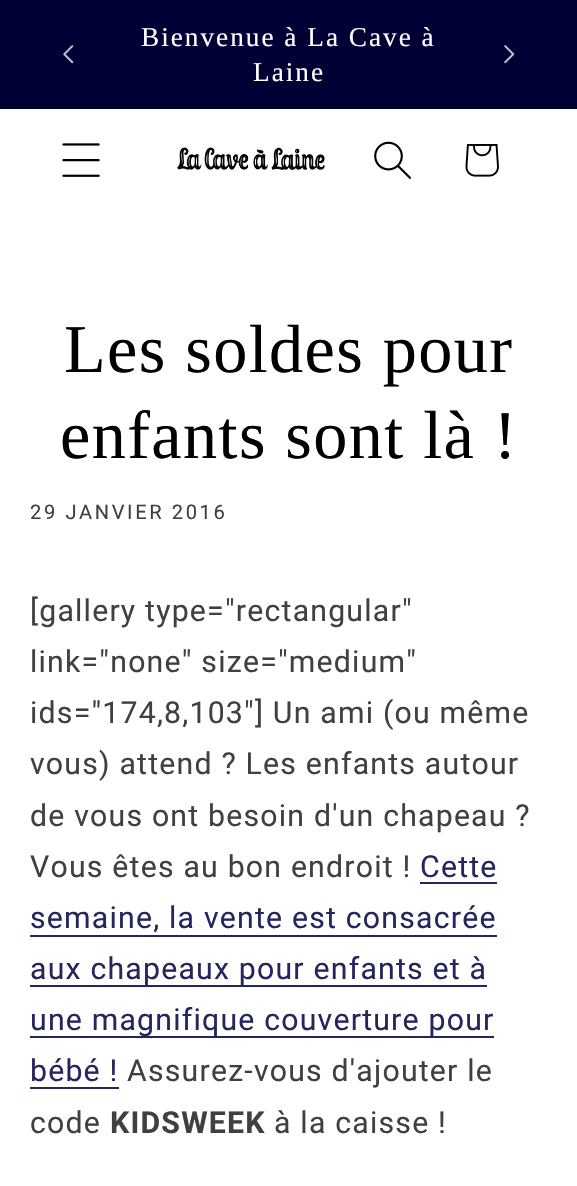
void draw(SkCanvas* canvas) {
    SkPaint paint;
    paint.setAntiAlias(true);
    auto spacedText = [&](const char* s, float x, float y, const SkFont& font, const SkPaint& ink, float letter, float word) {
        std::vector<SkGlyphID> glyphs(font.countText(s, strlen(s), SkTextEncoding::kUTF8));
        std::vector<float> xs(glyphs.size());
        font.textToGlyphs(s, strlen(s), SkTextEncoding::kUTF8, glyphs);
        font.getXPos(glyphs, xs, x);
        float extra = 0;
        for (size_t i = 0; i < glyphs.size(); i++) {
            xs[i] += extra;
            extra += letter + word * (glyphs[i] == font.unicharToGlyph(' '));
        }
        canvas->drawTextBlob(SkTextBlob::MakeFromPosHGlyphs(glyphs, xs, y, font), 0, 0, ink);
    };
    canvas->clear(0xFFFFFFFF);
    paint.setColor(0xFF000035);
    canvas->drawRect(SkRect::MakeXYWH(0, 0, 577, 109), paint);
    canvas->drawImageRect(SkImages::DeferredFromEncodedData(SkData::MakeFromFileName("img1.png")), SkRect::MakeXYWH(63, 45, 11, 19), SkSamplingOptions());
    SkFont font1(fontMgr->matchFamilyStyle("Liberation Serif", SkFontStyle::Normal()), 27.25f);
    font1.setSubpixel(true);
    paint.setColor(0xFFFFFFFF);
    spacedText("Bienvenue à La Cave à", 141, 46, font1, paint, 2, 0);
    spacedText("Laine", 253, 81, font1, paint, 2, 0);
    canvas->drawImageRect(SkImages::DeferredFromEncodedData(SkData::MakeFromFileName("img2.png")), SkRect::MakeXYWH(504, 45, 11, 19), SkSamplingOptions());
    canvas->drawImageRect(SkImages::DeferredFromEncodedData(SkData::MakeFromFileName("img3.png")), SkRect::MakeXYWH(62, 143, 38, 34), SkSamplingOptions());
    canvas->drawImageRect(SkImages::DeferredFromEncodedData(SkData::MakeFromFileName("img4.png")), SkRect::MakeXYWH(177, 147, 148, 24), SkSamplingOptions());
    canvas->drawImageRect(SkImages::DeferredFromEncodedData(SkData::MakeFromFileName("img5.png")), SkRect::MakeXYWH(374, 141, 37, 38), SkSamplingOptions());
    canvas->drawImageRect(SkImages::DeferredFromEncodedData(SkData::MakeFromFileName("img6.png")), SkRect::MakeXYWH(465, 144, 34, 33), SkSamplingOptions());
    SkFont font2(fontMgr->matchFamilyStyle("Liberation Serif", SkFontStyle::Normal()), 68.25f);
    font2.setSubpixel(true);
    paint.setColor(0xFF000000);
    spacedText("Les soldes pour", 64, 372, font2, paint, 1.4f, 0);
    spacedText("enfants sont là !", 60, 458, font2, paint, 1.4f, 0);
    SkFont font3(fontMgr->matchFamilyStyle("Roboto", SkFontStyle::Normal()), 20.1f);
    font3.setSubpixel(true);
    paint.setColor(0xFF404040);
    spacedText("29 JANVIER 2016", 30, 519, font3, paint, 2.6f, 0);
    SkFont font4(fontMgr->matchFamilyStyle("Roboto", SkFontStyle::Normal()), 30.25f);
    font4.setSubpixel(true);
    spacedText("[gallery type=\"rectangular\"", 30, 621, font4, paint, 1.2f, 0);
    spacedText("link=\"none\" size=\"medium\"", 30, 672, font4, paint, 1.2f, 0);
    spacedText("ids=\"174,8,103\"] Un ami (ou même", 30, 723, font4, paint, 1.2f, 0);
    spacedText("vous) attend ? Les enfants autour", 30, 774, font4, paint, 1.2f, 0);
    spacedText("de vous ont besoin d'un chapeau ?", 30, 826, font4, paint, 1.2f, 0);
    spacedText("Vous êtes au bon endroit !", 30, 877, font4, paint, 1.2f, 0);
    paint.setColor(0xFF26265E);
    spacedText("Cette", 420, 877, font4, paint, 1.2f, 0);
    canvas->drawRect(SkRect::MakeXYWH(420, 882, 77, 2), paint);
    spacedText("semaine, la vente est consacrée", 30, 928, font4, paint, 1.2f, 0);
    canvas->drawRect(SkRect::MakeXYWH(30, 935, 467, 2), paint);
    canvas->drawRect(SkRect::MakeXYWH(30, 985, 457, 2), paint);
    spacedText("aux chapeaux pour enfants et à", 30, 979, font4, paint, 1.2f, 0);
    canvas->drawRect(SkRect::MakeXYWH(30, 1036, 464, 2), paint);
    spacedText("une magnifique couverture pour", 30, 1030, font4, paint, 1.2f, 0);
    spacedText("bébé !", 30, 1081, font4, paint, 1.2f, 0);
    canvas->drawRect(SkRect::MakeXYWH(30, 1087, 89, 2), paint);
    paint.setColor(0xFF404040);
    spacedText("Assurez-vous d'ajouter le", 127, 1081, font4, paint, 1.2f, 0);
    spacedText("code", 30, 1133, font4, paint, 1.2f, 0);
    SkFont font5(fontMgr->matchFamilyStyle("Roboto", SkFontStyle::Bold()), 30.25f);
    font5.setSubpixel(true);
    spacedText("KIDSWEEK", 110, 1133, font5, paint, 1.2f, 0);
    spacedText("à la caisse !", 274, 1133, font4, paint, 1.2f, 0);
}
